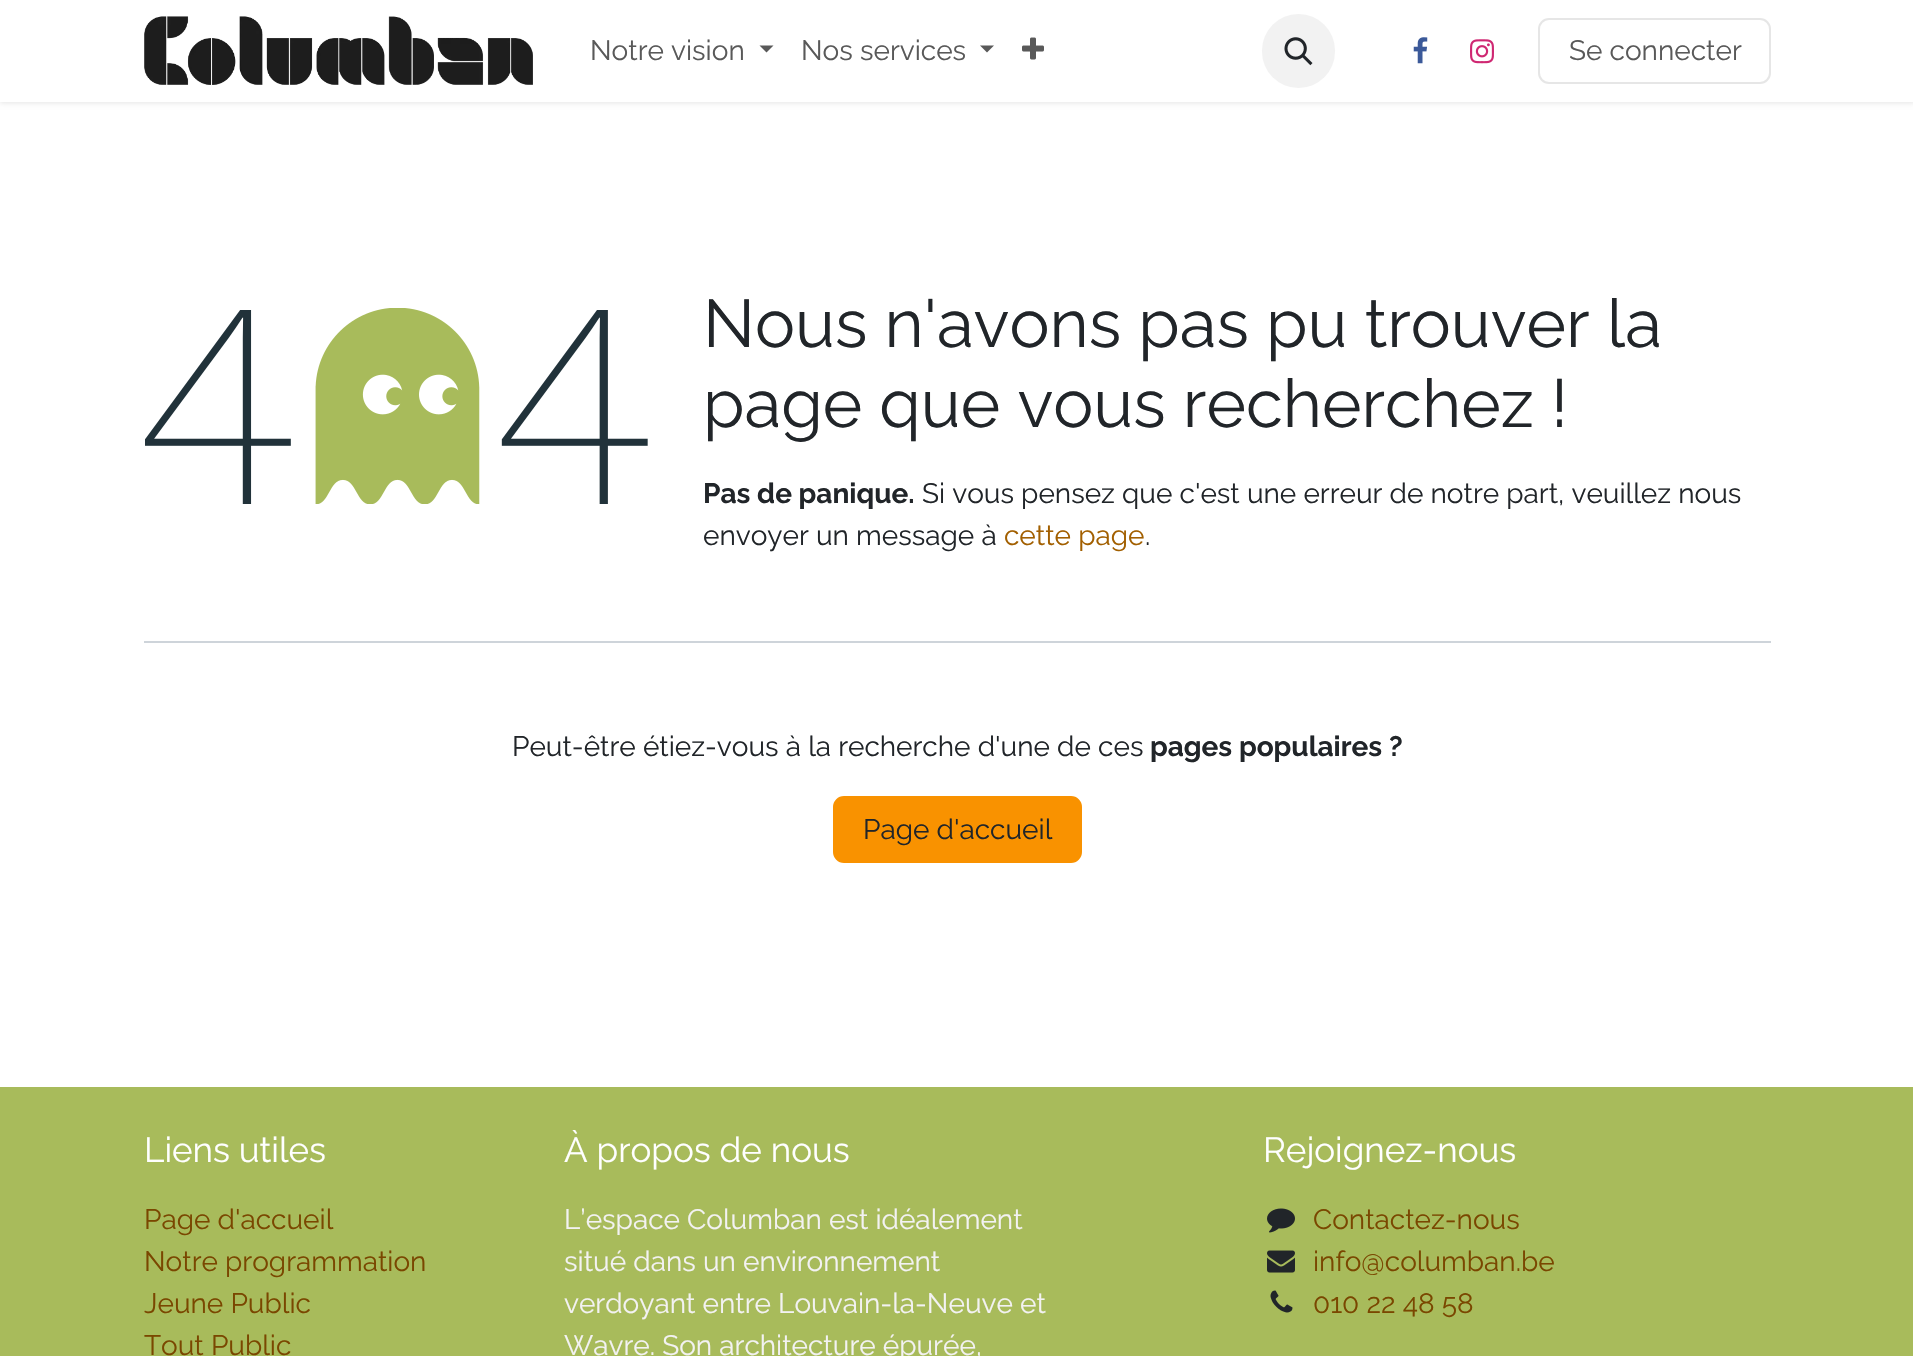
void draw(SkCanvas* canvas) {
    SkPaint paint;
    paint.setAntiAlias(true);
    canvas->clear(0xFFFFFFFF);
    paint.setColor(0x1A000000);
    paint.setMaskFilter(SkMaskFilter::MakeBlur(kNormal_SkBlurStyle, 2.5f));
    canvas->drawRect(SkRect::MakeXYWH(0, 2, 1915, 101), paint);
    paint.setMaskFilter(nullptr);
    paint.setColor(0xFFFFFFFF);
    canvas->drawRect(SkRect::MakeXYWH(0, 0, 1913, 102), paint);
    canvas->drawImageRect(SkImages::DeferredFromEncodedData(SkData::MakeFromFileName("img1.png")), SkRect::MakeXYWH(144, 16, 389, 69), SkSamplingOptions());
    SkFont font1(fontMgr->matchFamilyStyle("Raleway", SkFontStyle::Normal()), 28);
    font1.setSubpixel(true);
    paint.setColor(0xFF595959);
    canvas->drawString("Notre vision", 590, 60, font1, paint);
    canvas->drawPath(SkPathBuilder().moveTo(759.5f, 45.5f).lineTo(773.5f, 45.5f).lineTo(766.5f, 52.5f).close().detach(), paint);
    canvas->drawString("Nos services", 801, 60, font1, paint);
    canvas->drawPath(SkPathBuilder().moveTo(980, 45.5f).lineTo(994, 45.5f).lineTo(987, 52.5f).close().detach(), paint);
    canvas->drawImageRect(SkImages::DeferredFromEncodedData(SkData::MakeFromFileName("img2.png")), SkRect::MakeXYWH(1022, 37, 22, 23), SkSamplingOptions());
    paint.setColor(0xFFF2F2F2);
    canvas->drawRoundRect(SkRect::MakeXYWH(1262, 14, 73, 74), 36.5f, 36.5f, paint);
    canvas->drawImageRect(SkImages::DeferredFromEncodedData(SkData::MakeFromFileName("img3.png")), SkRect::MakeXYWH(1284, 37, 29, 29), SkSamplingOptions());
    canvas->drawImageRect(SkImages::DeferredFromEncodedData(SkData::MakeFromFileName("img4.png")), SkRect::MakeXYWH(1413, 37, 15, 27), SkSamplingOptions());
    canvas->drawImageRect(SkImages::DeferredFromEncodedData(SkData::MakeFromFileName("img5.png")), SkRect::MakeXYWH(1470, 39, 24, 25), SkSamplingOptions());
    paint.setStyle(SkPaint::kStroke_Style);
    paint.setStrokeWidth(2);
    paint.setColor(0xFFE6E6E6);
    canvas->drawRoundRect(SkRect::MakeXYWH(1539, 19, 231, 64), 10, 10, paint);
    paint.setStyle(SkPaint::kFill_Style);
    paint.setColor(0xFF595959);
    canvas->drawString("Se connecter", 1569, 60, font1, paint);
    canvas->drawImageRect(SkImages::DeferredFromEncodedData(SkData::MakeFromFileName("img6.png")), SkRect::MakeXYWH(145, 308, 503, 196), SkSamplingOptions());
    SkFont font2(fontMgr->matchFamilyStyle("Raleway", SkFontStyle::Normal()), 67.25f);
    font2.setSubpixel(true);
    paint.setColor(0xFF212529);
    canvas->drawString("Nous n'avons pas pu trouver la", 703, 347, font2, paint);
    canvas->drawString("page que vous recherchez !", 703, 427, font2, paint);
    SkFont font3(fontMgr->matchFamilyStyle("Raleway", SkFontStyle::Bold()), 28);
    font3.setSubpixel(true);
    canvas->drawString("Pas de panique.", 703, 503, font3, paint);
    canvas->drawString("Si vous pensez que c'est une erreur de notre part, veuillez nous", 922, 503, font1, paint);
    canvas->drawString("envoyer un message à", 703, 545, font1, paint);
    paint.setColor(0xFFA25F00);
    canvas->drawString("cette page", 1004, 545, font1, paint);
    paint.setColor(0xFF212529);
    canvas->drawString(".", 1145, 545, font1, paint);
    paint.setColor(0xFFCED4DA);
    canvas->drawRect(SkRect::MakeXYWH(144, 641, 1627, 2), paint);
    paint.setColor(0xFF212529);
    canvas->drawString("Peut-être étiez-vous à la recherche d'une de ces", 512, 756, font1, paint);
    canvas->drawString("pages populaires ?", 1150, 756, font3, paint);
    paint.setColor(0xFFF99200);
    canvas->drawRoundRect(SkRect::MakeXYWH(834, 797, 247, 65), 10, 10, paint);
    paint.setStyle(SkPaint::kStroke_Style);
    canvas->drawRoundRect(SkRect::MakeXYWH(834, 797, 247, 65), 10, 10, paint);
    paint.setStyle(SkPaint::kFill_Style);
    paint.setColor(0xFF212529);
    canvas->drawString("Page d'accueil", 863, 839, font1, paint);
    paint.setColor(0xFFA8BB5B);
    canvas->drawRect(SkRect::MakeXYWH(0, 1087, 1913, 269), paint);
    SkFont font4(fontMgr->matchFamilyStyle("Raleway", SkFontStyle::Normal()), 35);
    font4.setSubpixel(true);
    paint.setColor(0xFFFFFFFF);
    canvas->drawString("Liens utiles", 144, 1162, font4, paint);
    paint.setColor(0xFF7A4700);
    canvas->drawString("Page d'accueil", 144, 1229, font1, paint);
    canvas->drawString("Notre programmation", 144, 1271, font1, paint);
    canvas->drawString("Jeune Public", 144, 1313, font1, paint);
    canvas->drawString("Tout Public", 144, 1355, font1, paint);
    paint.setColor(0xFFFFFFFF);
    canvas->drawString("À propos de nous", 564, 1162, font4, paint);
    paint.setColor(0xFFF3F2F2);
    canvas->drawString("L’espace Columban est idéalement", 564, 1229, font1, paint);
    canvas->drawString("situé dans un environnement", 564, 1271, font1, paint);
    canvas->drawString("verdoyant entre Louvain-la-Neuve et", 564, 1313, font1, paint);
    canvas->drawString("Wavre. Son architecture épurée,", 564, 1355, font1, paint);
    paint.setColor(0xFFFFFFFF);
    canvas->drawString("Rejoignez-nous", 1263, 1162, font4, paint);
    canvas->drawImageRect(SkImages::DeferredFromEncodedData(SkData::MakeFromFileName("img7.png")), SkRect::MakeXYWH(1267, 1208, 28, 25), SkSamplingOptions());
    paint.setColor(0xFF7A4700);
    canvas->drawString("Contactez-nous", 1313, 1229, font1, paint);
    canvas->drawImageRect(SkImages::DeferredFromEncodedData(SkData::MakeFromFileName("img8.png")), SkRect::MakeXYWH(1267, 1250, 28, 23), SkSamplingOptions());
    canvas->drawString("info@columban.be", 1313, 1271, font1, paint);
    canvas->drawImageRect(SkImages::DeferredFromEncodedData(SkData::MakeFromFileName("img9.png")), SkRect::MakeXYWH(1270, 1290, 23, 23), SkSamplingOptions());
    canvas->drawString("010 22 48 58", 1313, 1313, font1, paint);
}
